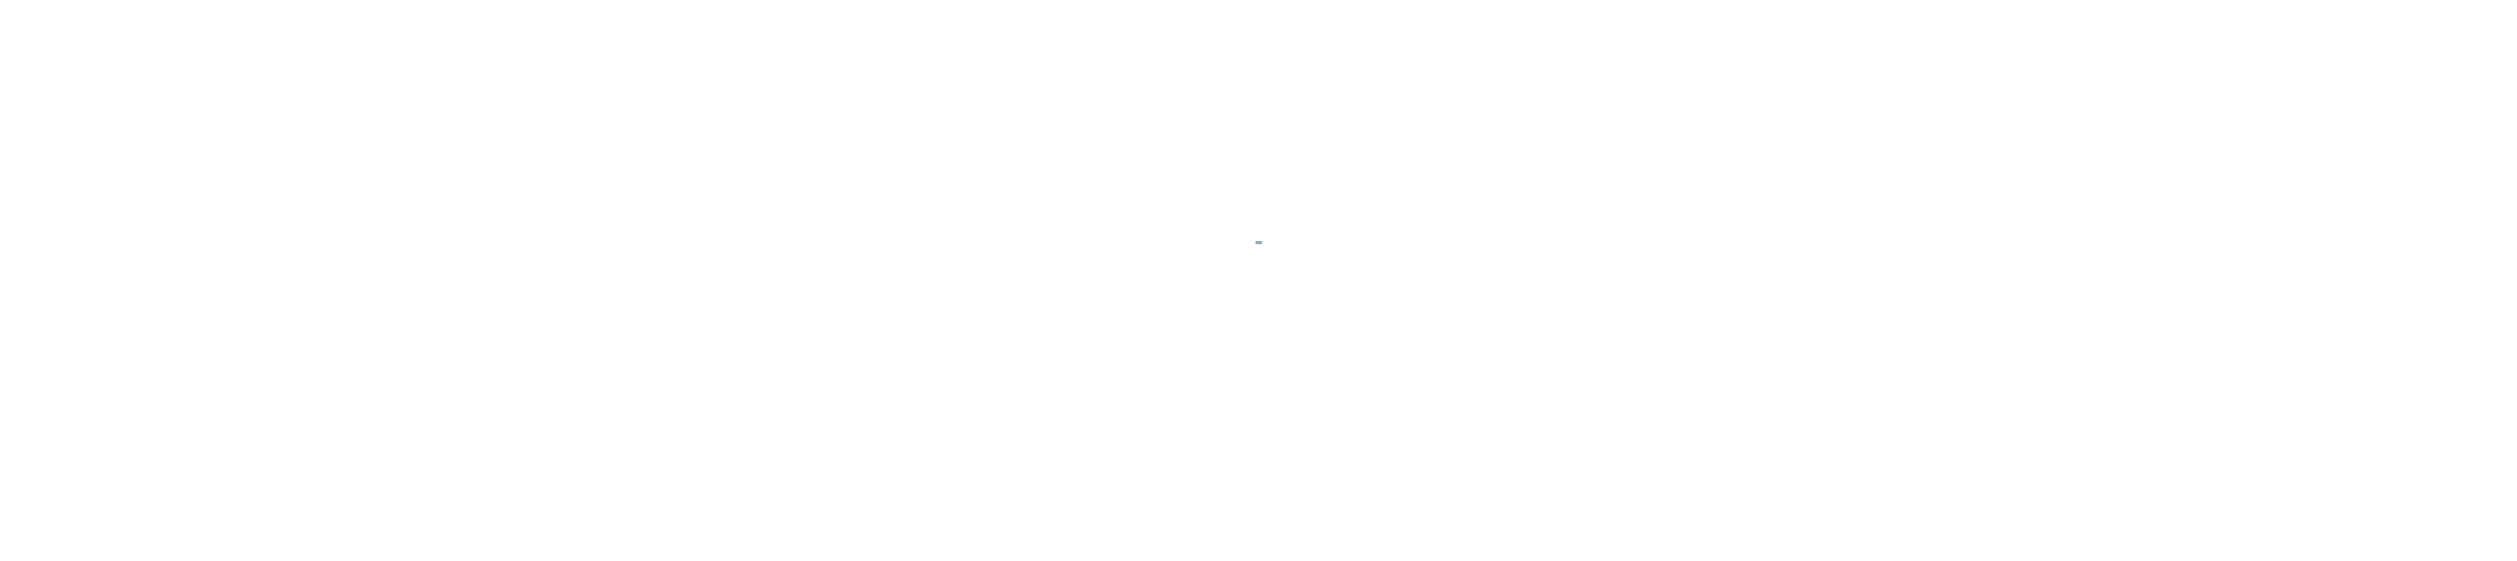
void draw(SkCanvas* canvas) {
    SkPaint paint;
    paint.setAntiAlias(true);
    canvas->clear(0xFFFFFFFF);
    canvas->save();
    canvas->clipRect(SkRect::MakeXYWH(1219, 241, 40, 80));
    paint.setStyle(SkPaint::kStroke_Style);
    paint.setStrokeWidth(3.7f);
    paint.setColor(0xFF95ACBE);
    canvas->drawPath(SkPathBuilder().moveTo(1255.5f, 242.5f).cubicTo(1263, 242, 1270.5f, 243.5f, 1277, 247).cubicTo(1310, 265, 1299.5f, 315.5f, 1262, 318.5f).detach(), paint);
    canvas->restore();
    canvas->save();
    canvas->clipRect(SkRect::MakeXYWH(1259, 241, 40, 80));
    canvas->drawPath(SkPathBuilder().moveTo(1255.5f, 318.5f).cubicTo(1248, 318, 1241, 315, 1235, 310.5f).cubicTo(1206, 287, 1225, 239.5f, 1262, 242.5f).detach(), paint);
    canvas->restore();
}
